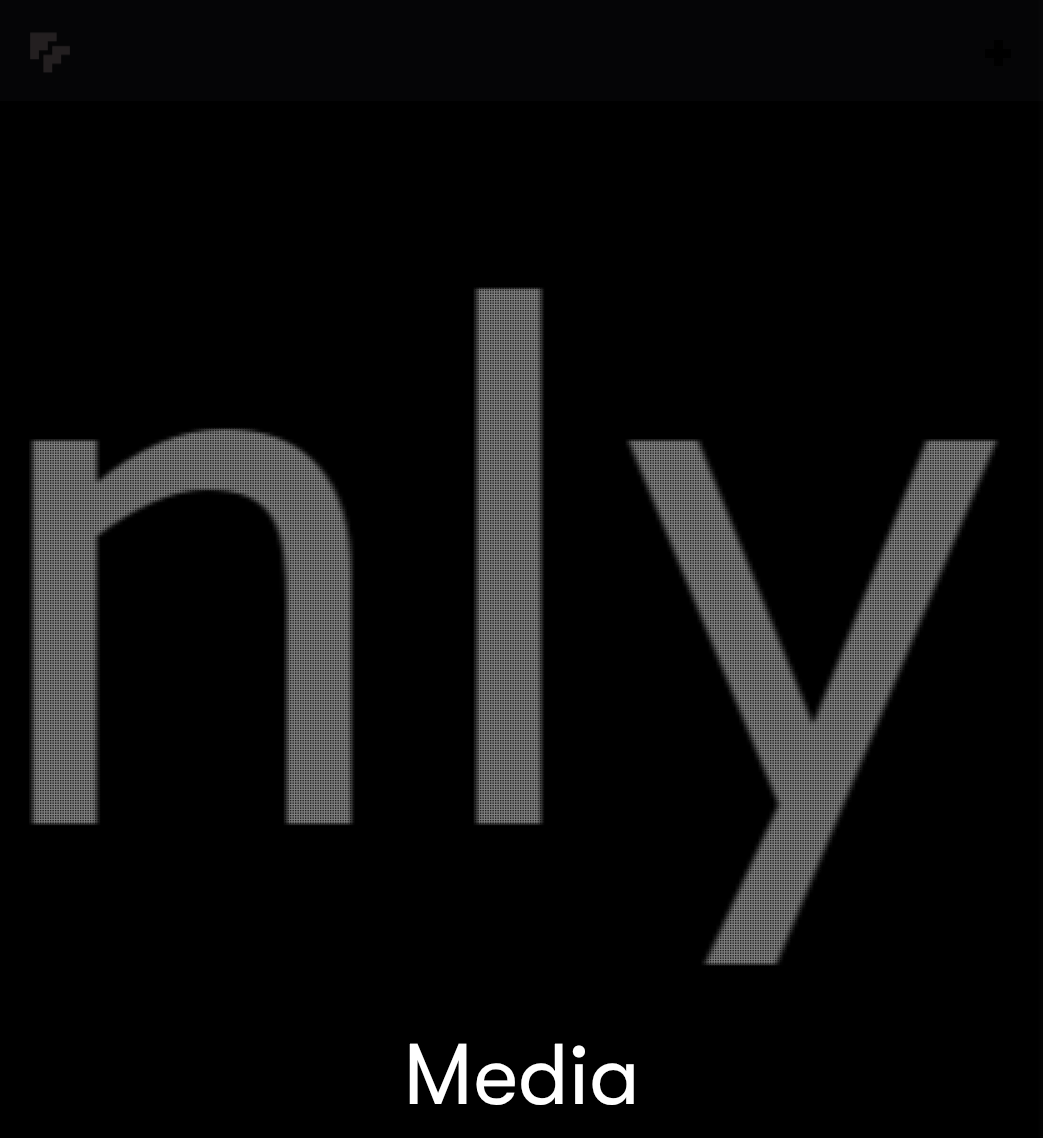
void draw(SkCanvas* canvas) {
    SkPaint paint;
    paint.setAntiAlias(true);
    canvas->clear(0xFFFFFFFF);
    canvas->drawImageRect(SkImages::DeferredFromEncodedData(SkData::MakeFromFileName("img2.png")), SkRect::MakeXYWH(0, 0, 1043, 1138), SkSamplingOptions());
    canvas->drawImageRect(SkImages::DeferredFromEncodedData(SkData::MakeFromFileName("img3.png")), SkRect::MakeXYWH(29, 0, 1014, 1136), SkSamplingOptions());
    paint.setColor(0x40131416);
    canvas->drawRect(SkRect::MakeXYWH(0, 0, 1043, 101), paint);
    canvas->drawImageRect(SkImages::DeferredFromEncodedData(SkData::MakeFromFileName("img1.png")), SkRect::MakeXYWH(30, 32, 40, 41), SkSamplingOptions());
    paint.setColor(0xFF000000);
    canvas->drawRect(SkRect::MakeXYWH(994, 40, 9, 26), paint);
    canvas->drawRect(SkRect::MakeXYWH(985, 49, 26, 9), paint);
    SkFont font1(fontMgr->matchFamilyStyle("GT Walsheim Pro", SkFontStyle::Normal()), 86);
    font1.setSubpixel(true);
    paint.setColor(0xFFFFFFFF);
    canvas->drawString("Media", 403, 1104, font1, paint);
}
